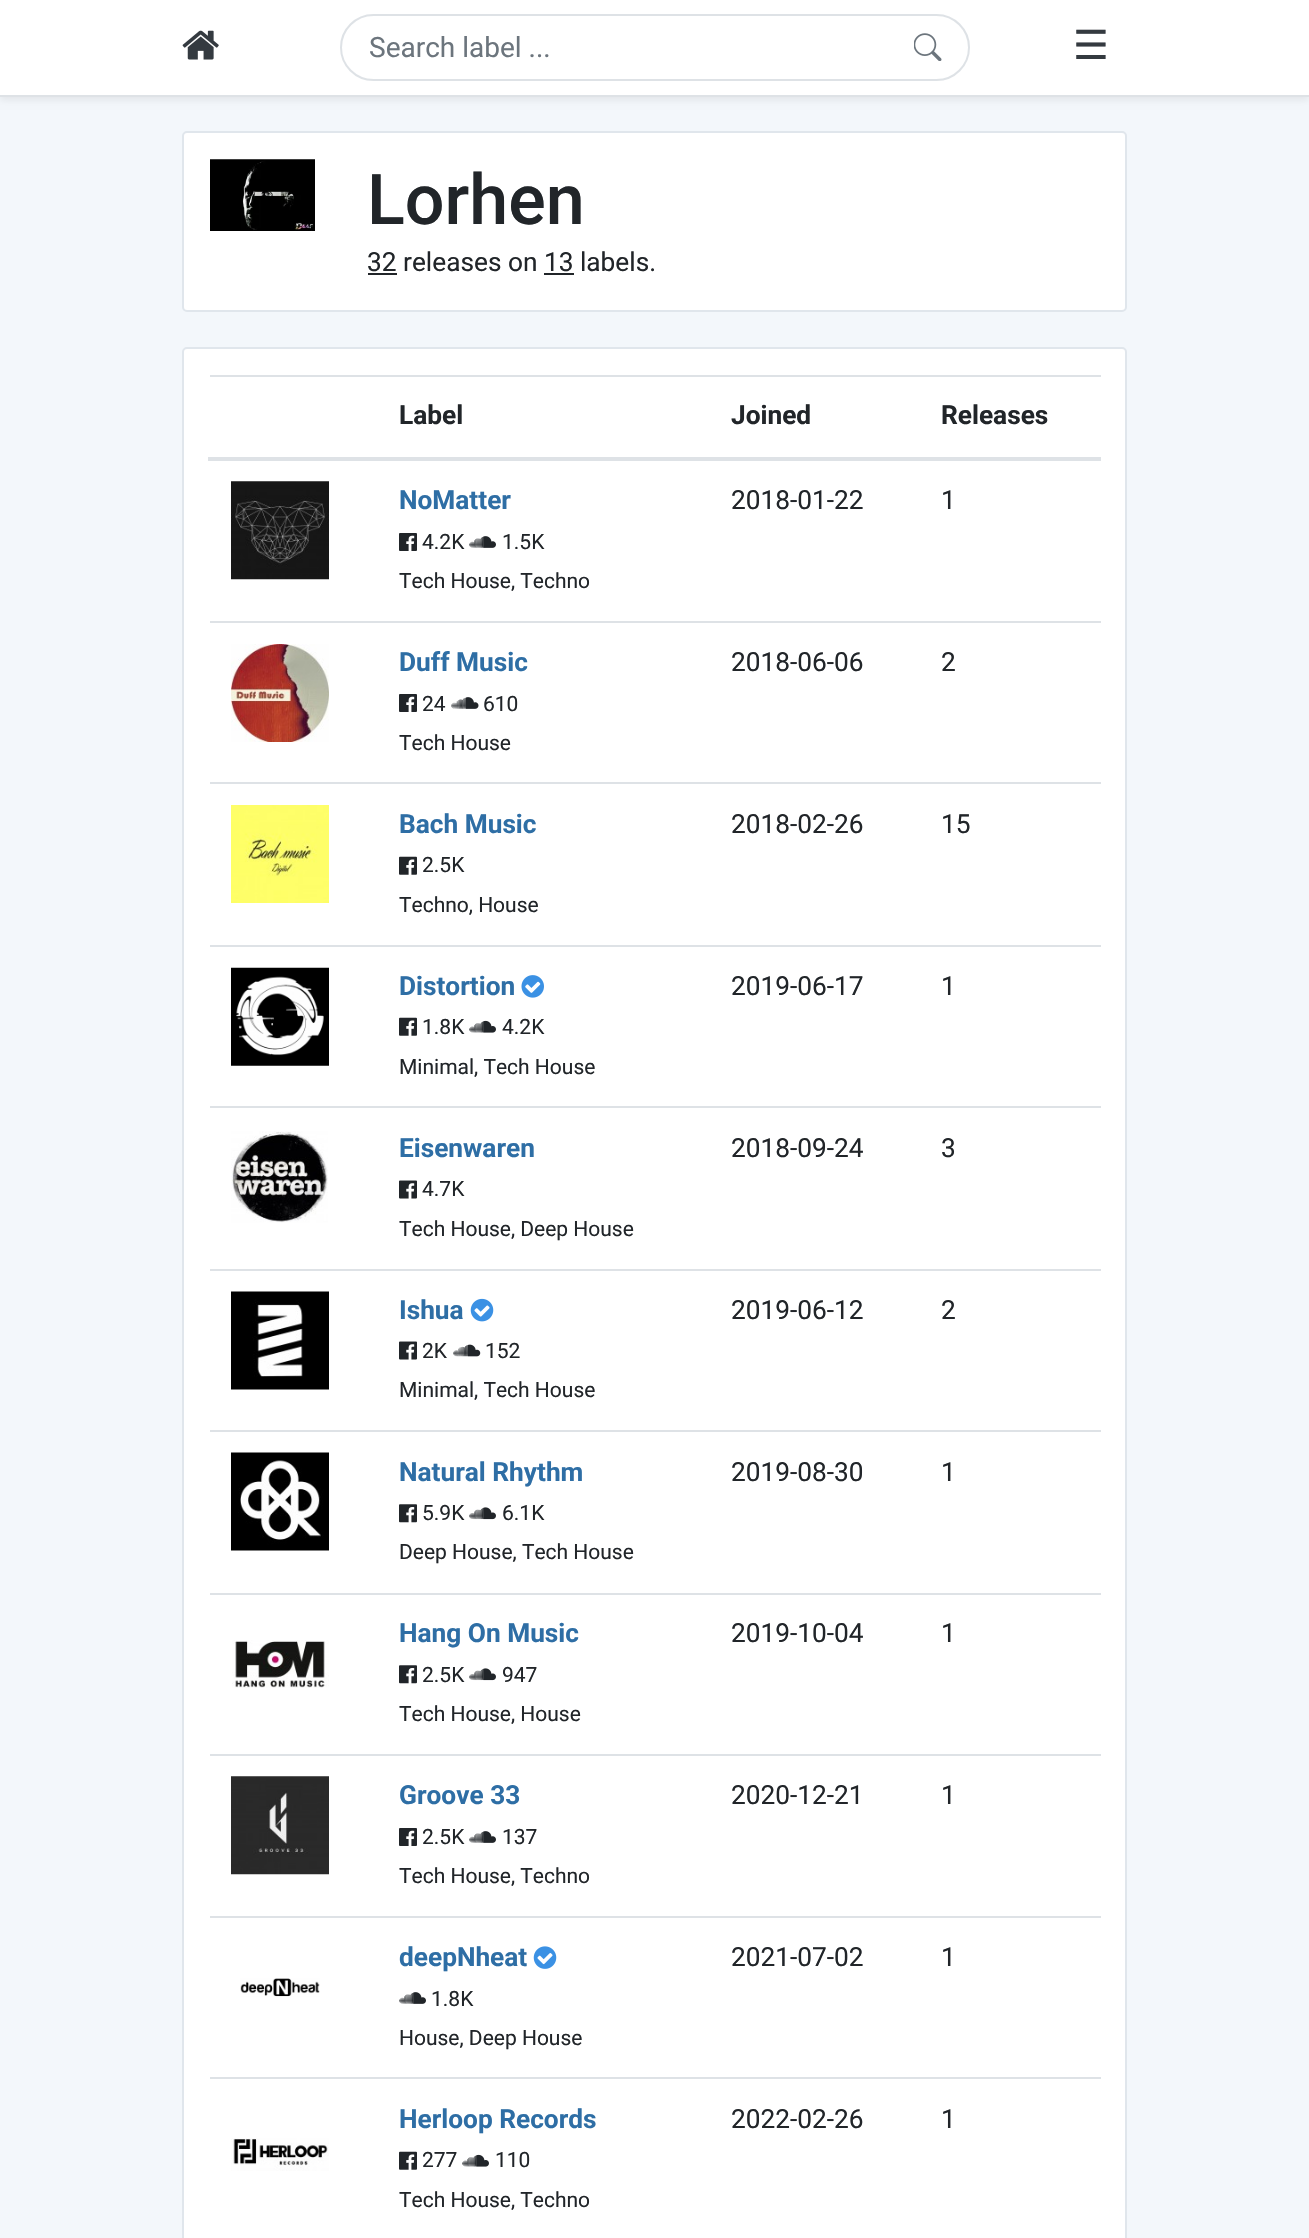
void draw(SkCanvas* canvas) {
    SkPaint paint;
    paint.setAntiAlias(true);
    canvas->clear(0xFFF3F7FB);
    paint.setColor(0x12000000);
    paint.setMaskFilter(SkMaskFilter::MakeBlur(kNormal_SkBlurStyle, 3.5f));
    canvas->drawRect(SkRect::MakeXYWH(0, 4, 1309, 96), paint);
    paint.setMaskFilter(nullptr);
    paint.setColor(0xFFFFFFFF);
    canvas->drawRect(SkRect::MakeXYWH(0, 0, 1309, 95), paint);
    paint.setColor(0xFFDEE2E6);
    canvas->drawRect(SkRect::MakeXYWH(0, 95, 1309, 2), paint);
    canvas->drawImageRect(SkImages::DeferredFromEncodedData(SkData::MakeFromFileName("img1.png")), SkRect::MakeXYWH(182, 30, 37, 30), SkSamplingOptions());
    paint.setStyle(SkPaint::kStroke_Style);
    paint.setStrokeWidth(2);
    canvas->drawRoundRect(SkRect::MakeXYWH(341, 15, 628, 65), 32.5f, 32.5f, paint);
    SkFont font1(fontMgr->matchFamilyStyle("Roboto", SkFontStyle::Normal()), 28);
    font1.setSubpixel(true);
    paint.setStyle(SkPaint::kFill_Style);
    paint.setColor(0xFF6C757D);
    canvas->drawString("Search label ...", 369, 57, font1, paint);
    canvas->drawImageRect(SkImages::DeferredFromEncodedData(SkData::MakeFromFileName("img2.png")), SkRect::MakeXYWH(914, 33, 28, 28), SkSamplingOptions());
    SkFont font2(fontMgr->matchFamilyStyle("DejaVu Sans", SkFontStyle::Normal()), 40);
    font2.setSubpixel(true);
    paint.setColor(0xFF343A40);
    canvas->drawString("☰", 1073, 59, font2, paint);
    paint.setColor(0xFFFFFFFF);
    canvas->drawRoundRect(SkRect::MakeXYWH(183, 132, 943, 179), 4, 4, paint);
    paint.setStyle(SkPaint::kStroke_Style);
    paint.setColor(0xFFE0E6EC);
    canvas->drawRoundRect(SkRect::MakeXYWH(183, 132, 943, 179), 4, 4, paint);
    canvas->drawImageRect(SkImages::DeferredFromEncodedData(SkData::MakeFromFileName("img3.png")), SkRect::MakeXYWH(210, 159, 105, 72), SkSamplingOptions());
    SkFont font3(fontMgr->matchFamilyStyle("Roboto", SkFontStyle(500, SkFontStyle::kNormal_Width, SkFontStyle::kUpright_Slant)), 70);
    font3.setSubpixel(true);
    paint.setStyle(SkPaint::kFill_Style);
    paint.setColor(0xFF212529);
    canvas->drawString("Lorhen", 367, 224, font3, paint);
    SkFont font4(fontMgr->matchFamilyStyle("Roboto", SkFontStyle::Normal()), 26.25f);
    font4.setSubpixel(true);
    canvas->drawString("32 releases on 13 labels.", 367, 271, font4, paint);
    canvas->drawRect(SkRect::MakeXYWH(368, 273, 29, 2), paint);
    canvas->drawRect(SkRect::MakeXYWH(544, 273, 30, 2), paint);
    paint.setColor(0xFFFFFFFF);
    canvas->drawRoundRect(SkRect::MakeXYWH(183, 348, 943, 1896), 4, 4, paint);
    paint.setStyle(SkPaint::kStroke_Style);
    paint.setColor(0xFFE0E6EC);
    canvas->drawRoundRect(SkRect::MakeXYWH(183, 348, 943, 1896), 4, 4, paint);
    SkFont font5(fontMgr->matchFamilyStyle("Roboto", SkFontStyle::Bold()), 26.25f);
    font5.setSubpixel(true);
    paint.setStyle(SkPaint::kFill_Style);
    paint.setColor(0xFF212529);
    canvas->drawString("Label", 399, 424, font5, paint);
    canvas->drawString("Joined", 731, 424, font5, paint);
    paint.setColor(0xFFDEE2E6);
    canvas->drawRect(SkRect::MakeXYWH(210, 375, 891, 2), paint);
    canvas->drawRect(SkRect::MakeXYWH(208, 457, 893, 4), paint);
    paint.setColor(0xFF212529);
    canvas->drawString("Releases", 941, 424, font5, paint);
    canvas->drawImageRect(SkImages::DeferredFromEncodedData(SkData::MakeFromFileName("img4.png")), SkRect::MakeXYWH(231, 481, 98, 99), SkSamplingOptions());
    paint.setColor(0xFF2E6EA5);
    canvas->drawString("NoMatter", 399, 509, font5, paint);
    canvas->drawImageRect(SkImages::DeferredFromEncodedData(SkData::MakeFromFileName("img5.png")), SkRect::MakeXYWH(399, 533, 18, 18), SkSamplingOptions());
    SkFont font6(fontMgr->matchFamilyStyle("Roboto", SkFontStyle::Normal()), 21);
    font6.setSubpixel(true);
    paint.setColor(0xFF212529);
    canvas->drawString("4.2K", 422, 549, font6, paint);
    canvas->drawImageRect(SkImages::DeferredFromEncodedData(SkData::MakeFromFileName("img6.png")), SkRect::MakeXYWH(469, 536, 27, 12), SkSamplingOptions());
    canvas->drawString("1.5K", 502, 549, font6, paint);
    canvas->drawString("Tech House, Techno", 399, 588, font6, paint);
    canvas->drawString("2018-01-22", 731, 509, font4, paint);
    canvas->drawString("1", 941, 509, font4, paint);
    canvas->drawImageRect(SkImages::DeferredFromEncodedData(SkData::MakeFromFileName("img7.png")), SkRect::MakeXYWH(231, 644, 98, 98), SkSamplingOptions());
    paint.setColor(0xFF2E6EA5);
    canvas->drawString("Duff Music", 399, 671, font5, paint);
    canvas->drawImageRect(SkImages::DeferredFromEncodedData(SkData::MakeFromFileName("img5.png")), SkRect::MakeXYWH(399, 694, 18, 18), SkSamplingOptions());
    paint.setColor(0xFF212529);
    canvas->drawString("24", 422, 711, font6, paint);
    canvas->drawImageRect(SkImages::DeferredFromEncodedData(SkData::MakeFromFileName("img8.png")), SkRect::MakeXYWH(451, 697, 28, 12), SkSamplingOptions());
    canvas->drawString("610", 483, 711, font6, paint);
    canvas->drawString("Tech House", 399, 750, font6, paint);
    canvas->drawString("2018-06-06", 731, 671, font4, paint);
    paint.setColor(0xFFDEE2E6);
    canvas->drawRect(SkRect::MakeXYWH(210, 621, 891, 2), paint);
    paint.setColor(0xFF212529);
    canvas->drawString("2", 941, 671, font4, paint);
    canvas->drawImageRect(SkImages::DeferredFromEncodedData(SkData::MakeFromFileName("img9.png")), SkRect::MakeXYWH(231, 805, 98, 98), SkSamplingOptions());
    paint.setColor(0xFF2E6EA5);
    canvas->drawString("Bach Music", 399, 833, font5, paint);
    canvas->drawImageRect(SkImages::DeferredFromEncodedData(SkData::MakeFromFileName("img10.png")), SkRect::MakeXYWH(399, 856, 18, 19), SkSamplingOptions());
    paint.setColor(0xFF212529);
    canvas->drawString("2.5K", 422, 872, font6, paint);
    canvas->drawString("Techno, House", 399, 912, font6, paint);
    canvas->drawString("2018-02-26", 731, 833, font4, paint);
    paint.setColor(0xFFDEE2E6);
    canvas->drawRect(SkRect::MakeXYWH(210, 782, 891, 2), paint);
    paint.setColor(0xFF212529);
    canvas->drawString("15", 941, 833, font4, paint);
    canvas->drawImageRect(SkImages::DeferredFromEncodedData(SkData::MakeFromFileName("img11.png")), SkRect::MakeXYWH(231, 967, 98, 99), SkSamplingOptions());
    paint.setColor(0xFF2E6EA5);
    canvas->drawString("Distortion", 399, 995, font5, paint);
    canvas->drawImageRect(SkImages::DeferredFromEncodedData(SkData::MakeFromFileName("img12.png")), SkRect::MakeXYWH(521, 975, 23, 23), SkSamplingOptions());
    canvas->drawImageRect(SkImages::DeferredFromEncodedData(SkData::MakeFromFileName("img10.png")), SkRect::MakeXYWH(399, 1017, 18, 19), SkSamplingOptions());
    paint.setColor(0xFF212529);
    canvas->drawString("1.8K", 422, 1034, font6, paint);
    canvas->drawImageRect(SkImages::DeferredFromEncodedData(SkData::MakeFromFileName("img13.png")), SkRect::MakeXYWH(469, 1020, 27, 13), SkSamplingOptions());
    canvas->drawString("4.2K", 502, 1034, font6, paint);
    canvas->drawString("Minimal, Tech House", 399, 1074, font6, paint);
    canvas->drawString("2019-06-17", 731, 995, font4, paint);
    paint.setColor(0xFFDEE2E6);
    canvas->drawRect(SkRect::MakeXYWH(210, 945, 891, 2), paint);
    paint.setColor(0xFF212529);
    canvas->drawString("1", 941, 995, font4, paint);
    canvas->drawImageRect(SkImages::DeferredFromEncodedData(SkData::MakeFromFileName("img14.png")), SkRect::MakeXYWH(231, 1131, 97, 92), SkSamplingOptions());
    paint.setColor(0xFF2E6EA5);
    canvas->drawString("Eisenwaren", 399, 1157, font5, paint);
    canvas->drawImageRect(SkImages::DeferredFromEncodedData(SkData::MakeFromFileName("img15.png")), SkRect::MakeXYWH(399, 1180, 18, 19), SkSamplingOptions());
    paint.setColor(0xFF212529);
    canvas->drawString("4.7K", 422, 1196, font6, paint);
    canvas->drawString("Tech House, Deep House", 399, 1236, font6, paint);
    canvas->drawString("2018-09-24", 731, 1157, font4, paint);
    paint.setColor(0xFFDEE2E6);
    canvas->drawRect(SkRect::MakeXYWH(210, 1106, 891, 2), paint);
    paint.setColor(0xFF212529);
    canvas->drawString("3", 941, 1157, font4, paint);
    canvas->drawImageRect(SkImages::DeferredFromEncodedData(SkData::MakeFromFileName("img16.png")), SkRect::MakeXYWH(231, 1291, 98, 99), SkSamplingOptions());
    paint.setColor(0xFF2E6EA5);
    canvas->drawString("Ishua", 399, 1319, font5, paint);
    canvas->drawImageRect(SkImages::DeferredFromEncodedData(SkData::MakeFromFileName("img17.png")), SkRect::MakeXYWH(470, 1298, 24, 24), SkSamplingOptions());
    canvas->drawImageRect(SkImages::DeferredFromEncodedData(SkData::MakeFromFileName("img15.png")), SkRect::MakeXYWH(399, 1341, 18, 19), SkSamplingOptions());
    paint.setColor(0xFF212529);
    canvas->drawString("2K", 422, 1358, font6, paint);
    canvas->drawImageRect(SkImages::DeferredFromEncodedData(SkData::MakeFromFileName("img18.png")), SkRect::MakeXYWH(453, 1344, 28, 13), SkSamplingOptions());
    canvas->drawString("152", 485, 1358, font6, paint);
    canvas->drawString("Minimal, Tech House", 399, 1397, font6, paint);
    canvas->drawString("2019-06-12", 731, 1319, font4, paint);
    paint.setColor(0xFFDEE2E6);
    canvas->drawRect(SkRect::MakeXYWH(210, 1269, 891, 2), paint);
    paint.setColor(0xFF212529);
    canvas->drawString("2", 941, 1319, font4, paint);
    canvas->drawImageRect(SkImages::DeferredFromEncodedData(SkData::MakeFromFileName("img19.png")), SkRect::MakeXYWH(231, 1452, 98, 99), SkSamplingOptions());
    paint.setColor(0xFF2E6EA5);
    canvas->drawString("Natural Rhythm", 399, 1481, font5, paint);
    canvas->drawImageRect(SkImages::DeferredFromEncodedData(SkData::MakeFromFileName("img20.png")), SkRect::MakeXYWH(399, 1504, 18, 19), SkSamplingOptions());
    paint.setColor(0xFF212529);
    canvas->drawString("5.9K", 422, 1520, font6, paint);
    canvas->drawImageRect(SkImages::DeferredFromEncodedData(SkData::MakeFromFileName("img21.png")), SkRect::MakeXYWH(469, 1507, 27, 13), SkSamplingOptions());
    canvas->drawString("6.1K", 502, 1520, font6, paint);
    canvas->drawString("Deep House, Tech House", 399, 1559, font6, paint);
    canvas->drawString("2019-08-30", 731, 1481, font4, paint);
    paint.setColor(0xFFDEE2E6);
    canvas->drawRect(SkRect::MakeXYWH(210, 1430, 891, 2), paint);
    paint.setColor(0xFF212529);
    canvas->drawString("1", 941, 1481, font4, paint);
    paint.setColor(0xFF2E6EA5);
    canvas->drawString("Hang On Music", 399, 1642, font5, paint);
    canvas->drawImageRect(SkImages::DeferredFromEncodedData(SkData::MakeFromFileName("img20.png")), SkRect::MakeXYWH(399, 1665, 18, 19), SkSamplingOptions());
    paint.setColor(0xFF212529);
    canvas->drawString("2.5K", 422, 1682, font6, paint);
    canvas->drawImageRect(SkImages::DeferredFromEncodedData(SkData::MakeFromFileName("img21.png")), SkRect::MakeXYWH(469, 1668, 27, 13), SkSamplingOptions());
    canvas->drawString("947", 502, 1682, font6, paint);
    canvas->drawString("Tech House, House", 399, 1721, font6, paint);
    canvas->drawString("2019-10-04", 731, 1642, font4, paint);
    paint.setColor(0xFFDEE2E6);
    canvas->drawRect(SkRect::MakeXYWH(210, 1593, 891, 2), paint);
    paint.setColor(0xFF212529);
    canvas->drawString("1", 941, 1642, font4, paint);
    canvas->drawImageRect(SkImages::DeferredFromEncodedData(SkData::MakeFromFileName("img22.png")), SkRect::MakeXYWH(232, 1640, 97, 48), SkSamplingOptions());
    canvas->drawImageRect(SkImages::DeferredFromEncodedData(SkData::MakeFromFileName("img23.png")), SkRect::MakeXYWH(231, 1776, 98, 99), SkSamplingOptions());
    paint.setColor(0xFF2E6EA5);
    canvas->drawString("Groove 33", 399, 1804, font5, paint);
    canvas->drawImageRect(SkImages::DeferredFromEncodedData(SkData::MakeFromFileName("img5.png")), SkRect::MakeXYWH(399, 1828, 18, 18), SkSamplingOptions());
    paint.setColor(0xFF212529);
    canvas->drawString("2.5K", 422, 1844, font6, paint);
    canvas->drawImageRect(SkImages::DeferredFromEncodedData(SkData::MakeFromFileName("img6.png")), SkRect::MakeXYWH(469, 1831, 27, 12), SkSamplingOptions());
    canvas->drawString("137", 502, 1844, font6, paint);
    canvas->drawString("Tech House, Techno", 399, 1883, font6, paint);
    canvas->drawString("2020-12-21", 731, 1804, font4, paint);
    paint.setColor(0xFFDEE2E6);
    canvas->drawRect(SkRect::MakeXYWH(210, 1754, 891, 2), paint);
    paint.setColor(0xFF212529);
    canvas->drawString("1", 941, 1804, font4, paint);
    paint.setColor(0xFF2E6EA5);
    canvas->drawString("deepNheat", 399, 1966, font5, paint);
    canvas->drawImageRect(SkImages::DeferredFromEncodedData(SkData::MakeFromFileName("img24.png")), SkRect::MakeXYWH(533, 1946, 24, 23), SkSamplingOptions());
    canvas->drawImageRect(SkImages::DeferredFromEncodedData(SkData::MakeFromFileName("img6.png")), SkRect::MakeXYWH(399, 1992, 27, 12), SkSamplingOptions());
    paint.setColor(0xFF212529);
    canvas->drawString("1.8K", 431, 2006, font6, paint);
    canvas->drawString("House, Deep House", 399, 2045, font6, paint);
    canvas->drawString("2021-07-02", 731, 1966, font4, paint);
    paint.setColor(0xFFDEE2E6);
    canvas->drawRect(SkRect::MakeXYWH(210, 1916, 891, 2), paint);
    paint.setColor(0xFF212529);
    canvas->drawString("1", 941, 1966, font4, paint);
    canvas->drawImageRect(SkImages::DeferredFromEncodedData(SkData::MakeFromFileName("img25.png")), SkRect::MakeXYWH(240, 1978, 80, 19), SkSamplingOptions());
    paint.setColor(0xFF2E6EA5);
    canvas->drawString("Herloop Records", 399, 2128, font5, paint);
    canvas->drawImageRect(SkImages::DeferredFromEncodedData(SkData::MakeFromFileName("img10.png")), SkRect::MakeXYWH(399, 2151, 18, 19), SkSamplingOptions());
    paint.setColor(0xFF212529);
    canvas->drawString("277", 422, 2167, font6, paint);
    canvas->drawImageRect(SkImages::DeferredFromEncodedData(SkData::MakeFromFileName("img26.png")), SkRect::MakeXYWH(462, 2154, 27, 13), SkSamplingOptions());
    canvas->drawString("110", 495, 2167, font6, paint);
    canvas->drawString("Tech House, Techno", 399, 2207, font6, paint);
    canvas->drawString("2022-02-26", 731, 2128, font4, paint);
    paint.setColor(0xFFDEE2E6);
    canvas->drawRect(SkRect::MakeXYWH(210, 2077, 891, 2), paint);
    paint.setColor(0xFF212529);
    canvas->drawString("1", 941, 2128, font4, paint);
    canvas->drawImageRect(SkImages::DeferredFromEncodedData(SkData::MakeFromFileName("img27.png")), SkRect::MakeXYWH(231, 2138, 98, 33), SkSamplingOptions());
}
